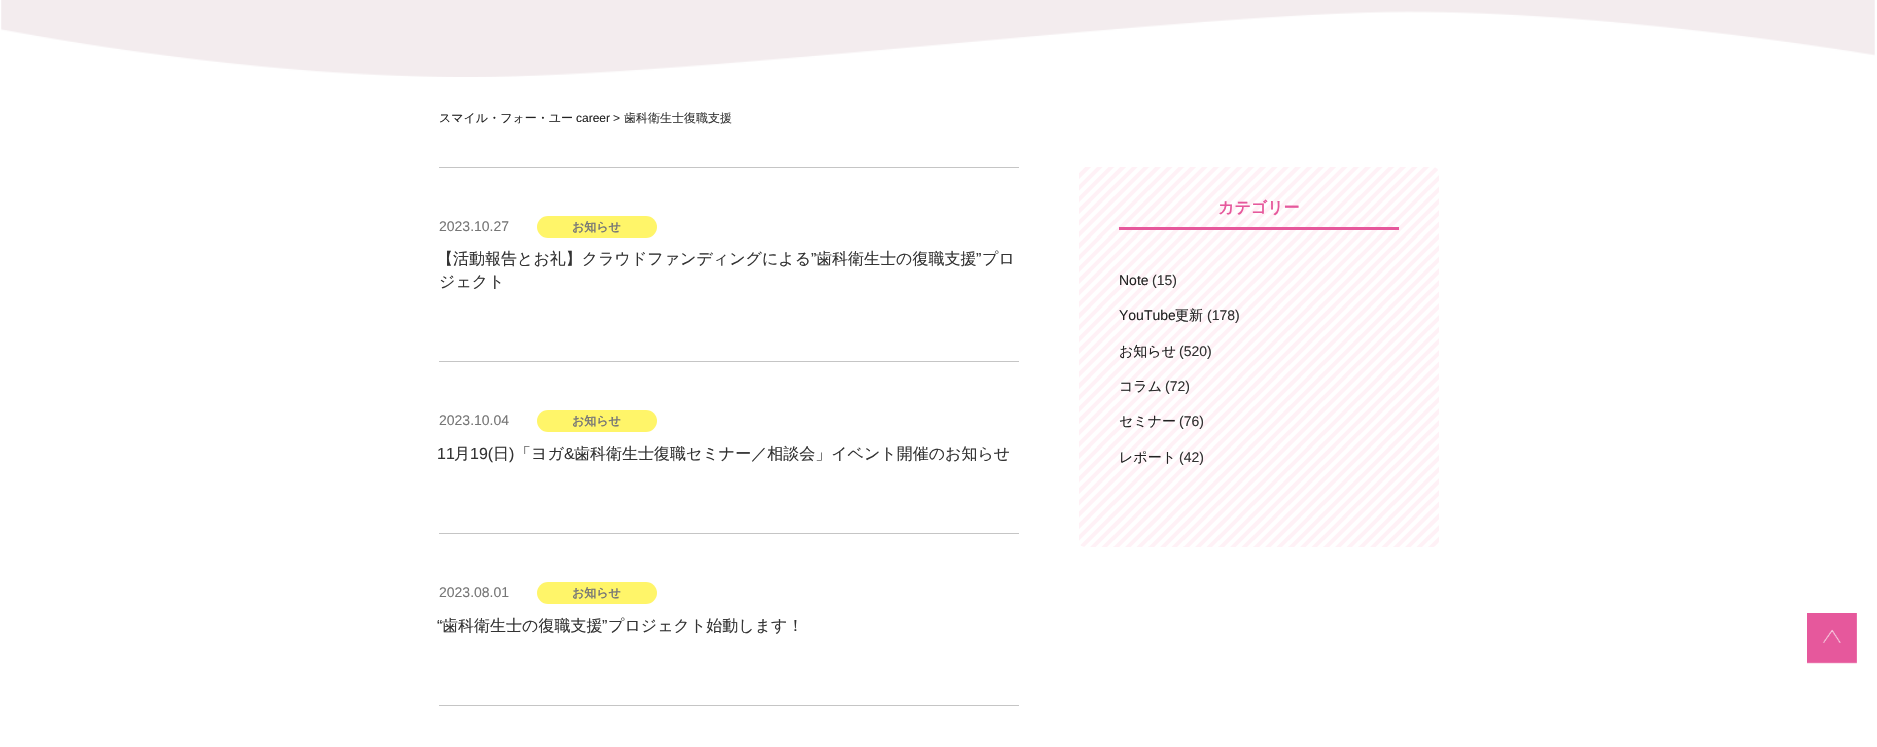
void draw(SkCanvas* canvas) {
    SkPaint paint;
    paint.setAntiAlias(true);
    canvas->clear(0xFFFFFFFF);
    canvas->drawImageRect(SkImages::DeferredFromEncodedData(SkData::MakeFromFileName("img1.png")), SkRect::MakeXYWH(0, 0, 1877, 77), SkSamplingOptions());
    SkFont font1(fontMgr->matchFamilyStyle("WenQuanYi Zen Hei", SkFontStyle(500, SkFontStyle::kNormal_Width, SkFontStyle::kUpright_Slant)), 12);
    font1.setSubpixel(true);
    paint.setColor(0xFF222222);
    canvas->drawString("スマイル・フォー・ユー", 439, 122, font1, paint);
    SkFont font2(fontMgr->matchFamilyStyle("Liberation Sans", SkFontStyle::Normal()), 12);
    font2.setSubpixel(true);
    canvas->drawString("career", 576, 122, font2, paint);
    paint.setColor(0xFF333333);
    canvas->drawString(">", 613, 122, font2, paint);
    canvas->drawString("歯科衛生士復職支援", 624, 122, font1, paint);
    paint.setColor(0xFFC5C5C5);
    canvas->drawRect(SkRect::MakeXYWH(439, 167, 580, 1), paint);
    canvas->drawRect(SkRect::MakeXYWH(439, 361, 580, 1), paint);
    SkFont font3(fontMgr->matchFamilyStyle("Liberation Sans", SkFontStyle::Normal()), 14);
    font3.setSubpixel(true);
    paint.setColor(0xFF767676);
    canvas->drawString("2023.10.27", 439, 231, font3, paint);
    paint.setColor(0xFFFFF569);
    canvas->drawRoundRect(SkRect::MakeXYWH(537, 216, 120, 22), 11, 11, paint);
    SkFont font4(fontMgr->matchFamilyStyle("WenQuanYi Zen Hei", SkFontStyle::Bold()), 12);
    font4.setSubpixel(true);
    paint.setColor(0xFF767676);
    canvas->drawString("お知らせ", 572, 231, font4, paint);
    SkFont font5(fontMgr->matchFamilyStyle("WenQuanYi Zen Hei", SkFontStyle(500, SkFontStyle::kNormal_Width, SkFontStyle::kUpright_Slant)), 16);
    font5.setSubpixel(true);
    paint.setColor(0xFF333333);
    canvas->drawString("【活動報告とお礼】クラウドファンディングによる", 437, 264, font5, paint);
    SkFont font6(fontMgr->matchFamilyStyle("Liberation Sans", SkFontStyle::Normal()), 16);
    font6.setSubpixel(true);
    canvas->drawString("”", 811, 264, font6, paint);
    canvas->drawString("歯科衛生士の復職支援", 816, 264, font5, paint);
    canvas->drawString("”", 976, 264, font6, paint);
    canvas->drawString("プロ", 982, 264, font5, paint);
    canvas->drawString("ジェクト", 439, 287, font5, paint);
    paint.setColor(0xFFC5C5C5);
    canvas->drawRect(SkRect::MakeXYWH(439, 533, 580, 1), paint);
    paint.setColor(0xFF767676);
    canvas->drawString("2023.10.04", 439, 425, font3, paint);
    paint.setColor(0xFFFFF569);
    canvas->drawRoundRect(SkRect::MakeXYWH(537, 410, 120, 22), 11, 11, paint);
    paint.setColor(0xFF767676);
    canvas->drawString("お知らせ", 572, 425, font4, paint);
    paint.setColor(0xFF333333);
    canvas->drawString("11", 437, 459, font6, paint);
    canvas->drawString("月", 454, 459, font5, paint);
    canvas->drawString("19(", 470, 459, font6, paint);
    canvas->drawString("日", 493, 459, font5, paint);
    canvas->drawString(")", 509, 459, font6, paint);
    canvas->drawString("「ヨガ", 515, 459, font5, paint);
    canvas->drawString("&", 564, 459, font6, paint);
    canvas->drawString("歯科衛生士復職セミナー／相談会」イベント開催のお知らせ", 574, 459, font5, paint);
    paint.setColor(0xFFC5C5C5);
    canvas->drawRect(SkRect::MakeXYWH(439, 705, 580, 1), paint);
    paint.setColor(0xFF767676);
    canvas->drawString("2023.08.01", 439, 597, font3, paint);
    paint.setColor(0xFFFFF569);
    canvas->drawRoundRect(SkRect::MakeXYWH(537, 582, 120, 22), 11, 11, paint);
    paint.setColor(0xFF767676);
    canvas->drawString("お知らせ", 572, 597, font4, paint);
    paint.setColor(0xFF333333);
    canvas->drawString("“", 437, 631, font6, paint);
    canvas->drawString("歯科衛生士の復職支援", 442, 631, font5, paint);
    canvas->drawString("”", 602, 631, font6, paint);
    canvas->drawString("プロジェクト始動します！", 608, 631, font5, paint);
    canvas->drawImageRect(SkImages::DeferredFromEncodedData(SkData::MakeFromFileName("img2.png")), SkRect::MakeXYWH(1079, 167, 360, 380), SkSamplingOptions());
    paint.setColor(0xFFE6589C);
    canvas->drawRect(SkRect::MakeXYWH(1119, 227, 280, 3), paint);
    SkFont font7(fontMgr->matchFamilyStyle("WenQuanYi Zen Hei", SkFontStyle::Bold()), 16);
    font7.setSubpixel(true);
    canvas->drawString("カテゴリー", 1218, 213, font7, paint);
    paint.setColor(0xFF222222);
    canvas->drawString("Note", 1119, 285, font3, paint);
    paint.setColor(0xFF333333);
    canvas->drawString("(15)", 1152, 285, font3, paint);
    paint.setColor(0xFF222222);
    canvas->drawString("YouTube", 1119, 320, font3, paint);
    SkFont font8(fontMgr->matchFamilyStyle("WenQuanYi Zen Hei", SkFontStyle(500, SkFontStyle::kNormal_Width, SkFontStyle::kUpright_Slant)), 14);
    font8.setSubpixel(true);
    canvas->drawString("更新", 1175, 320, font8, paint);
    paint.setColor(0xFF333333);
    canvas->drawString("(178)", 1207, 320, font3, paint);
    paint.setColor(0xFF222222);
    canvas->drawString("お知らせ", 1119, 356, font8, paint);
    paint.setColor(0xFF333333);
    canvas->drawString("(520)", 1179, 356, font3, paint);
    paint.setColor(0xFF222222);
    canvas->drawString("コラム", 1119, 391, font8, paint);
    paint.setColor(0xFF333333);
    canvas->drawString("(72)", 1165, 391, font3, paint);
    paint.setColor(0xFF222222);
    canvas->drawString("セミナー", 1119, 426, font8, paint);
    paint.setColor(0xFF333333);
    canvas->drawString("(76)", 1179, 426, font3, paint);
    paint.setColor(0xFF222222);
    canvas->drawString("レポート", 1119, 462, font8, paint);
    paint.setColor(0xFF333333);
    canvas->drawString("(42)", 1179, 462, font3, paint);
    canvas->drawImageRect(SkImages::DeferredFromEncodedData(SkData::MakeFromFileName("img3.png")), SkRect::MakeXYWH(1807, 613, 50, 51), SkSamplingOptions());
}
